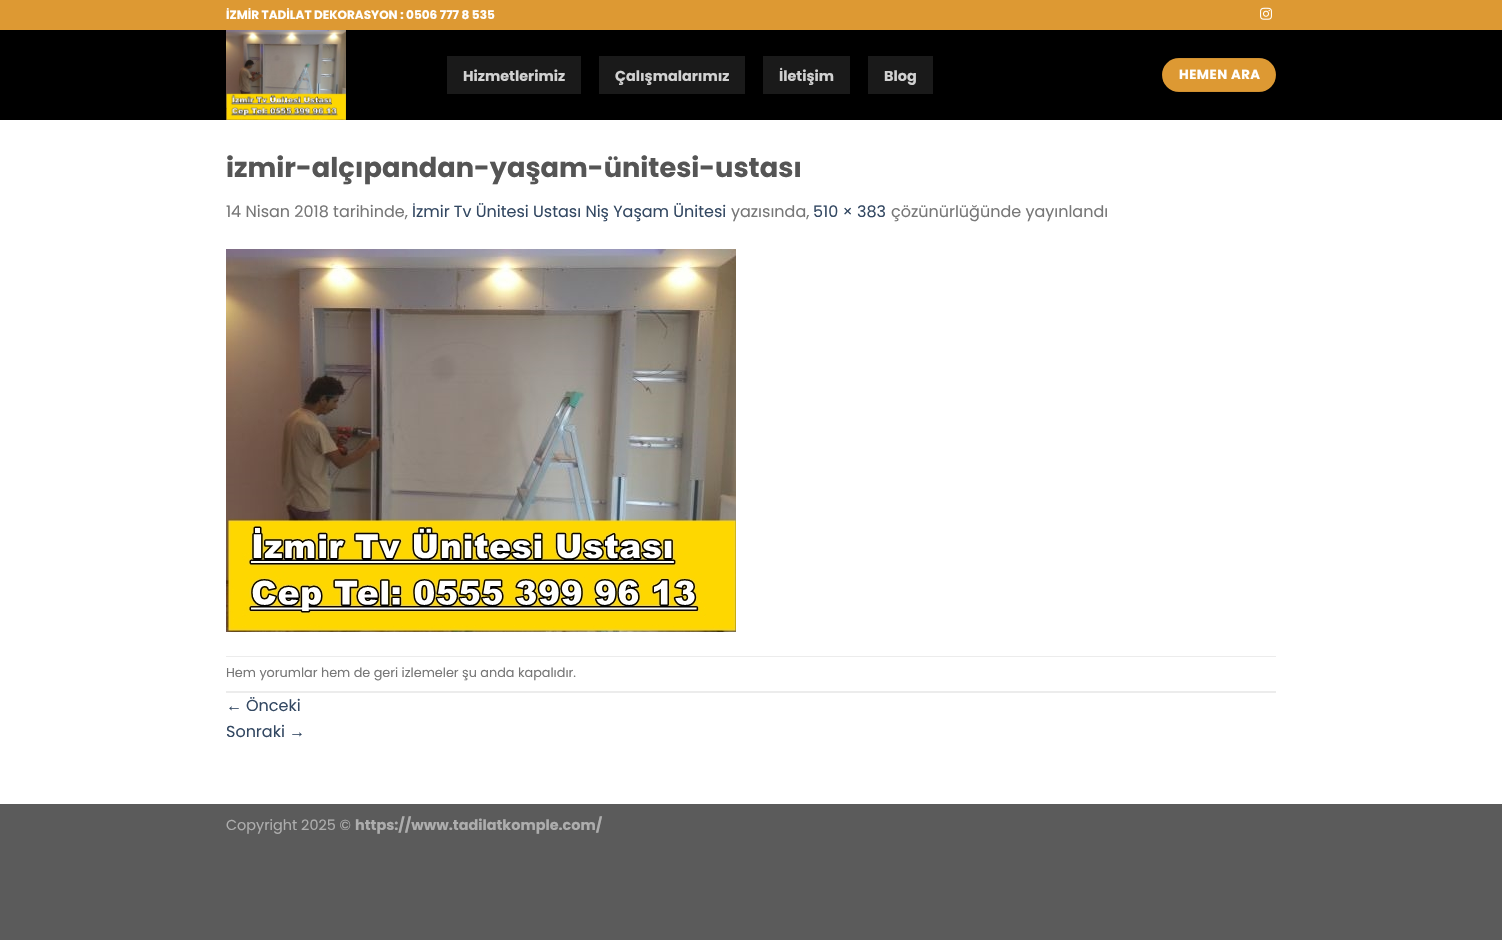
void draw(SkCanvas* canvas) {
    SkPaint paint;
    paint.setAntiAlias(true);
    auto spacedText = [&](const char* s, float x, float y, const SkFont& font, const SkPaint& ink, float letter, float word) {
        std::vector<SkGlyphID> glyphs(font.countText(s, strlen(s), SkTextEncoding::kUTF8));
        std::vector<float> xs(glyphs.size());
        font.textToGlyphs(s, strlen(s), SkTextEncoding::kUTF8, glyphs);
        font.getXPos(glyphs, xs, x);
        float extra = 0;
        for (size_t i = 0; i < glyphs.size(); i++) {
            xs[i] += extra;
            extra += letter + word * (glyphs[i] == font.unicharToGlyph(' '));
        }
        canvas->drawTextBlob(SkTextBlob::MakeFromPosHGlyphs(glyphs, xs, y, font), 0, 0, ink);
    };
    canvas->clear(0xFF5B5B5B);
    paint.setColor(0xFFFFFFFF);
    canvas->drawRect(SkRect::MakeXYWH(0, 120, 1502, 684), paint);
    paint.setColor(0xFFDD9933);
    canvas->drawRect(SkRect::MakeXYWH(0, 0, 1502, 30), paint);
    SkFont font1(fontMgr->matchFamilyStyle("Poppins", SkFontStyle::Bold()), 12);
    font1.setSubpixel(true);
    paint.setColor(0xFFFFFFFF);
    canvas->drawString("İZMİR TADİLAT DEKORASYON : 0506 777 8 535", 226, 19, font1, paint);
    canvas->drawImageRect(SkImages::DeferredFromEncodedData(SkData::MakeFromFileName("img1.png")), SkRect::MakeXYWH(1260, 7, 12, 13), SkSamplingOptions());
    paint.setColor(0xFF000000);
    canvas->drawRect(SkRect::MakeXYWH(0, 30, 1502, 90), paint);
    canvas->drawImageRect(SkImages::DeferredFromEncodedData(SkData::MakeFromFileName("img2.png")), SkRect::MakeXYWH(226, 30, 120, 90), SkSamplingOptions());
    paint.setColor(0xFF1A1A1A);
    canvas->drawRect(SkRect::MakeXYWH(447, 56, 134, 38), paint);
    SkFont font2(fontMgr->matchFamilyStyle("Poppins", SkFontStyle::Bold()), 14.4f);
    font2.setSubpixel(true);
    paint.setColor(0xFFD1D1D1);
    canvas->drawString("Hizmetlerimiz", 463, 81, font2, paint);
    paint.setColor(0xFF1A1A1A);
    canvas->drawRect(SkRect::MakeXYWH(599, 56, 146, 38), paint);
    paint.setColor(0xFFD1D1D1);
    canvas->drawString("Çalışmalarımız", 615, 81, font2, paint);
    paint.setColor(0xFF1A1A1A);
    canvas->drawRect(SkRect::MakeXYWH(763, 56, 87, 38), paint);
    paint.setColor(0xFFD1D1D1);
    canvas->drawString("İletişim", 779, 81, font2, paint);
    paint.setColor(0xFF1A1A1A);
    canvas->drawRect(SkRect::MakeXYWH(868, 56, 65, 38), paint);
    paint.setColor(0xFFD1D1D1);
    canvas->drawString("Blog", 884, 81, font2, paint);
    paint.setColor(0xFFDD9933);
    canvas->drawRoundRect(SkRect::MakeXYWH(1162, 58, 114, 34), 17, 17, paint);
    paint.setStyle(SkPaint::kStroke_Style);
    paint.setStrokeWidth(1);
    paint.setColor(0x0D000000);
    canvas->drawRect(SkRect::MakeXYWH(1162.5f, 58.5f, 113, 33), paint);
    SkFont font3(fontMgr->matchFamilyStyle("Poppins", SkFontStyle::Bold()), 13.25f);
    font3.setSubpixel(true);
    paint.setStyle(SkPaint::kFill_Style);
    paint.setColor(0xFFFFFFFF);
    spacedText("HEMEN ARA", 1179, 79, font3, paint, 0.5f, 0);
    SkFont font4(fontMgr->matchFamilyStyle("Poppins", SkFontStyle::Bold()), 27.2f);
    font4.setSubpixel(true);
    paint.setColor(0xFF555555);
    canvas->drawString("izmir-alçıpandan-yaşam-ünitesi-ustası", 226, 177, font4, paint);
    SkFont font5(fontMgr->matchFamilyStyle("Poppins", SkFontStyle::Normal()), 16);
    font5.setSubpixel(true);
    paint.setColor(0xFF777777);
    canvas->drawString("14 Nisan 2018 tarihinde,", 226, 217, font5, paint);
    paint.setColor(0xFF334862);
    canvas->drawString("İzmir Tv Ünitesi Ustası Niş Yaşam Ünitesi", 412, 217, font5, paint);
    paint.setColor(0xFF777777);
    canvas->drawString("yazısında,", 731, 217, font5, paint);
    paint.setColor(0xFF334862);
    canvas->drawString("510 × 383", 813, 217, font5, paint);
    paint.setColor(0xFF777777);
    canvas->drawString("çözünürlüğünde yayınlandı", 891, 217, font5, paint);
    canvas->drawImageRect(SkImages::DeferredFromEncodedData(SkData::MakeFromFileName("img3.png")), SkRect::MakeXYWH(226, 249, 510, 383), SkSamplingOptions());
    paint.setColor(0xFFECECEC);
    canvas->drawRect(SkRect::MakeXYWH(226, 656, 1050, 1), paint);
    canvas->drawRect(SkRect::MakeXYWH(226, 691, 1050, 2), paint);
    SkFont font6(fontMgr->matchFamilyStyle("Poppins", SkFontStyle::Normal()), 12.8f);
    font6.setSubpixel(true);
    paint.setColor(0xFF777777);
    canvas->drawString("Hem yorumlar hem de geri izlemeler şu anda kapalıdır.", 226, 677, font6, paint);
    SkFont font7(fontMgr->matchFamilyStyle("Liberation Sans", SkFontStyle::Normal()), 16);
    font7.setSubpixel(true);
    paint.setColor(0xFF334862);
    canvas->drawString("←", 226, 711, font7, paint);
    canvas->drawString("Önceki", 246, 711, font5, paint);
    canvas->drawString("Sonraki", 226, 737, font5, paint);
    canvas->drawString("→", 289, 737, font7, paint);
    SkFont font8(fontMgr->matchFamilyStyle("Poppins", SkFontStyle::Normal()), 14.4f);
    font8.setSubpixel(true);
    paint.setColor(0xFFADADAD);
    canvas->drawString("Copyright 2025 ©", 226, 830, font8, paint);
    canvas->drawString("https://www.tadilatkomple.com/", 355, 830, font2, paint);
}
